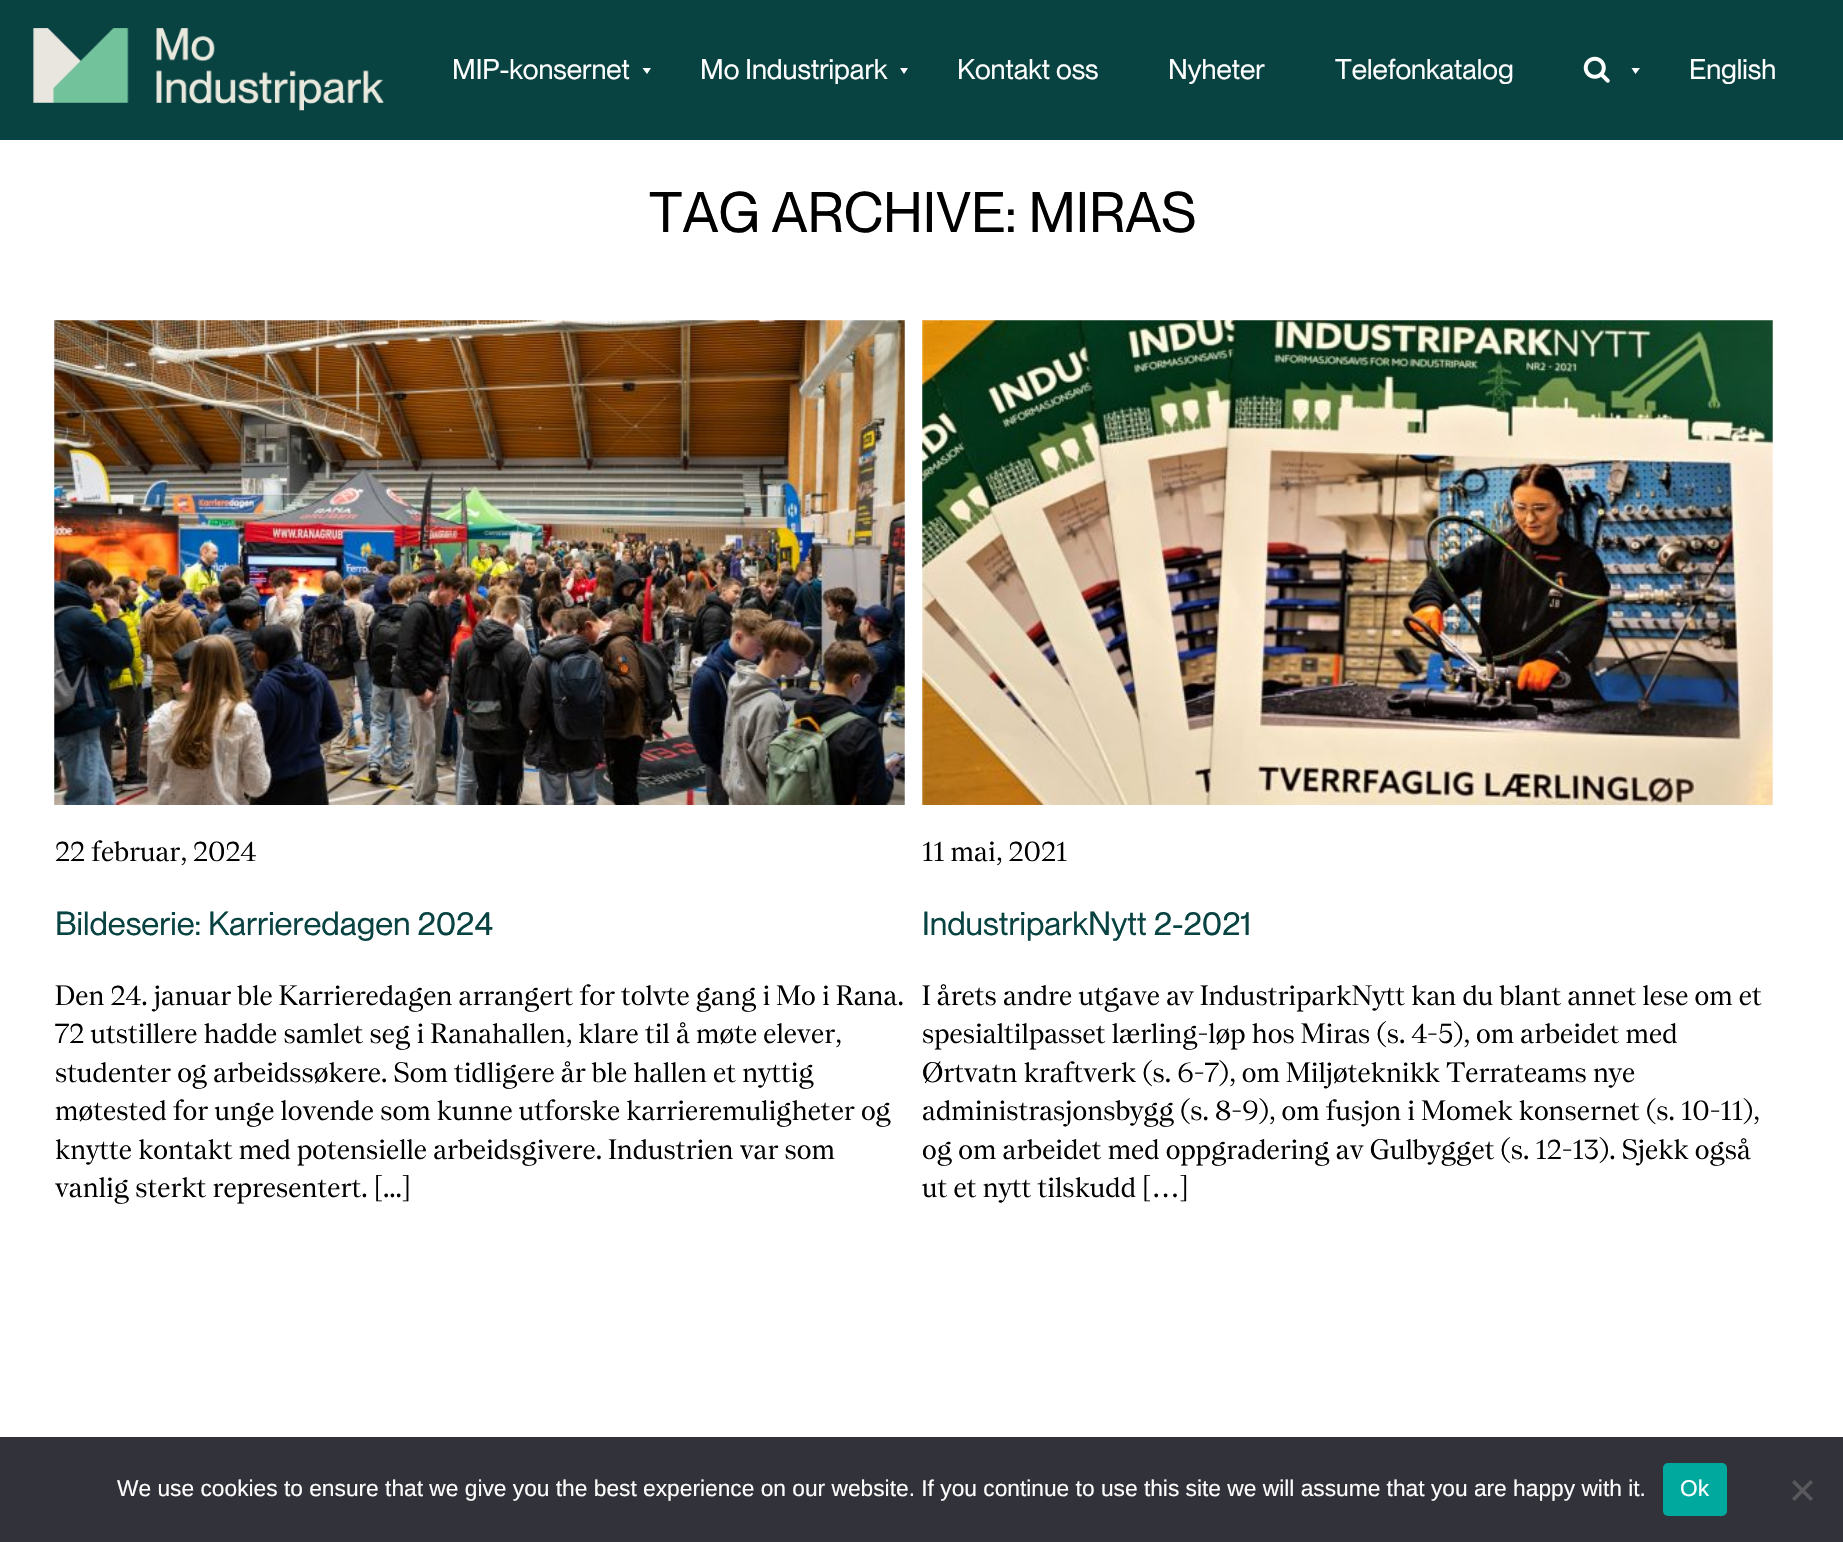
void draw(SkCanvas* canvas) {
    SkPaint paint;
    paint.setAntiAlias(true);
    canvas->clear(0xFFFFFFFF);
    paint.setColor(0xFF084342);
    canvas->drawRect(SkRect::MakeXYWH(0, 0, 1843, 140), paint);
    canvas->drawImageRect(SkImages::DeferredFromEncodedData(SkData::MakeFromFileName("img1.png")), SkRect::MakeXYWH(33, 28, 351, 83), SkSamplingOptions());
    SkFont font1(fontMgr->matchFamilyStyle("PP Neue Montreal", SkFontStyle::Normal()), 28);
    font1.setSubpixel(true);
    paint.setColor(0xFFFFFFFF);
    canvas->drawString("MIP-konsernet", 452, 79, font1, paint);
    canvas->drawPath(SkPathBuilder().moveTo(651, 68).lineTo(647, 74).lineTo(642.5f, 68).close().detach(), paint);
    canvas->drawString("Mo Industripark", 700, 79, font1, paint);
    canvas->drawPath(SkPathBuilder().moveTo(908, 68).lineTo(904, 74).lineTo(900, 68).close().detach(), paint);
    canvas->drawString("Kontakt oss", 957, 79, font1, paint);
    canvas->drawString("Nyheter", 1168, 79, font1, paint);
    canvas->drawString("Telefonkatalog", 1335, 79, font1, paint);
    canvas->drawImageRect(SkImages::DeferredFromEncodedData(SkData::MakeFromFileName("img2.png")), SkRect::MakeXYWH(1583, 56, 27, 27), SkSamplingOptions());
    canvas->drawPath(SkPathBuilder().moveTo(1640, 68).lineTo(1635.5f, 74).lineTo(1631.5f, 68).close().detach(), paint);
    canvas->drawString("English", 1689, 79, font1, paint);
    SkFont font2(fontMgr->matchFamilyStyle("PP Neue Montreal", SkFontStyle::Normal()), 56);
    font2.setSubpixel(true);
    paint.setColor(0xFF000000);
    canvas->drawString("TAG ARCHIVE: MIRAS", 649, 232, font2, paint);
    canvas->drawImageRect(SkImages::DeferredFromEncodedData(SkData::MakeFromFileName("img3.png")), SkRect::MakeXYWH(54, 320, 851, 485), SkSamplingOptions());
    SkFont font3(fontMgr->matchFamilyStyle("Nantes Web", SkFontStyle::Normal()), 28);
    font3.setSubpixel(true);
    canvas->drawString("22 februar, 2024", 55, 861, font3, paint);
    SkFont font4(fontMgr->matchFamilyStyle("PP Neue Montreal", SkFontStyle::Normal()), 32.75f);
    font4.setSubpixel(true);
    paint.setColor(0xFF084342);
    canvas->drawString("Bildeserie: Karrieredagen 2024", 55, 935, font4, paint);
    paint.setColor(0xFF000000);
    canvas->drawString("Den 24. januar ble Karrieredagen arrangert for tolvte gang i Mo i Rana.", 55, 1005, font3, paint);
    canvas->drawString("72 utstillere hadde samlet seg i Ranahallen, klare til å møte elever,", 55, 1043, font3, paint);
    canvas->drawString("studenter og arbeidssøkere. Som tidligere år ble hallen et nyttig", 55, 1082, font3, paint);
    canvas->drawString("møtested for unge lovende som kunne utforske karrieremuligheter og", 55, 1120, font3, paint);
    canvas->drawString("knytte kontakt med potensielle arbeidsgivere. Industrien var som", 55, 1159, font3, paint);
    canvas->drawString("vanlig sterkt representert. [...]", 55, 1197, font3, paint);
    canvas->drawImageRect(SkImages::DeferredFromEncodedData(SkData::MakeFromFileName("img4.png")), SkRect::MakeXYWH(922, 320, 851, 485), SkSamplingOptions());
    canvas->drawString("11 mai, 2021", 922, 861, font3, paint);
    paint.setColor(0xFF084342);
    canvas->drawString("IndustriparkNytt 2-2021", 922, 935, font4, paint);
    paint.setColor(0xFF000000);
    canvas->drawString("I årets andre utgave av IndustriparkNytt kan du blant annet lese om et", 922, 1005, font3, paint);
    canvas->drawString("spesialtilpasset lærling-løp hos Miras (s. 4-5), om arbeidet med", 922, 1043, font3, paint);
    canvas->drawString("Ørtvatn kraftverk (s. 6-7), om Miljøteknikk Terrateams nye", 922, 1082, font3, paint);
    canvas->drawString("administrasjonsbygg (s. 8-9), om fusjon i Momek konsernet (s. 10-11),", 922, 1120, font3, paint);
    canvas->drawString("og om arbeidet med oppgradering av Gulbygget (s. 12-13). Sjekk også", 922, 1159, font3, paint);
    canvas->drawString("ut et nytt tilskudd […]", 922, 1197, font3, paint);
    paint.setColor(0xFF32323A);
    canvas->drawRect(SkRect::MakeXYWH(0, 1437, 1843, 105), paint);
    SkFont font5(fontMgr->matchFamilyStyle("Liberation Sans", SkFontStyle::Normal()), 22.75f);
    font5.setSubpixel(true);
    paint.setColor(0xFFFFFFFF);
    canvas->drawString("We use cookies to ensure that we give you the best experience on our website. If you continue to use this site we will assume that you are happy with it.", 117, 1496, font5, paint);
    paint.setColor(0xFF00A99D);
    canvas->drawRoundRect(SkRect::MakeXYWH(1663, 1463, 64, 53), 5, 5, paint);
    paint.setColor(0xFFFFFFFF);
    canvas->drawString("Ok", 1680, 1496, font5, paint);
    paint.setColor(0xFF59595D);
    canvas->drawPath(SkPathBuilder().moveTo(1810.5f, 1480).lineTo(1813, 1482.5f).lineTo(1794.5f, 1501).lineTo(1792, 1498.5f).close().detach(), paint);
    canvas->drawPath(SkPathBuilder().moveTo(1792, 1482.5f).lineTo(1794.5f, 1480).lineTo(1813, 1498.5f).lineTo(1810.5f, 1501).close().detach(), paint);
}
